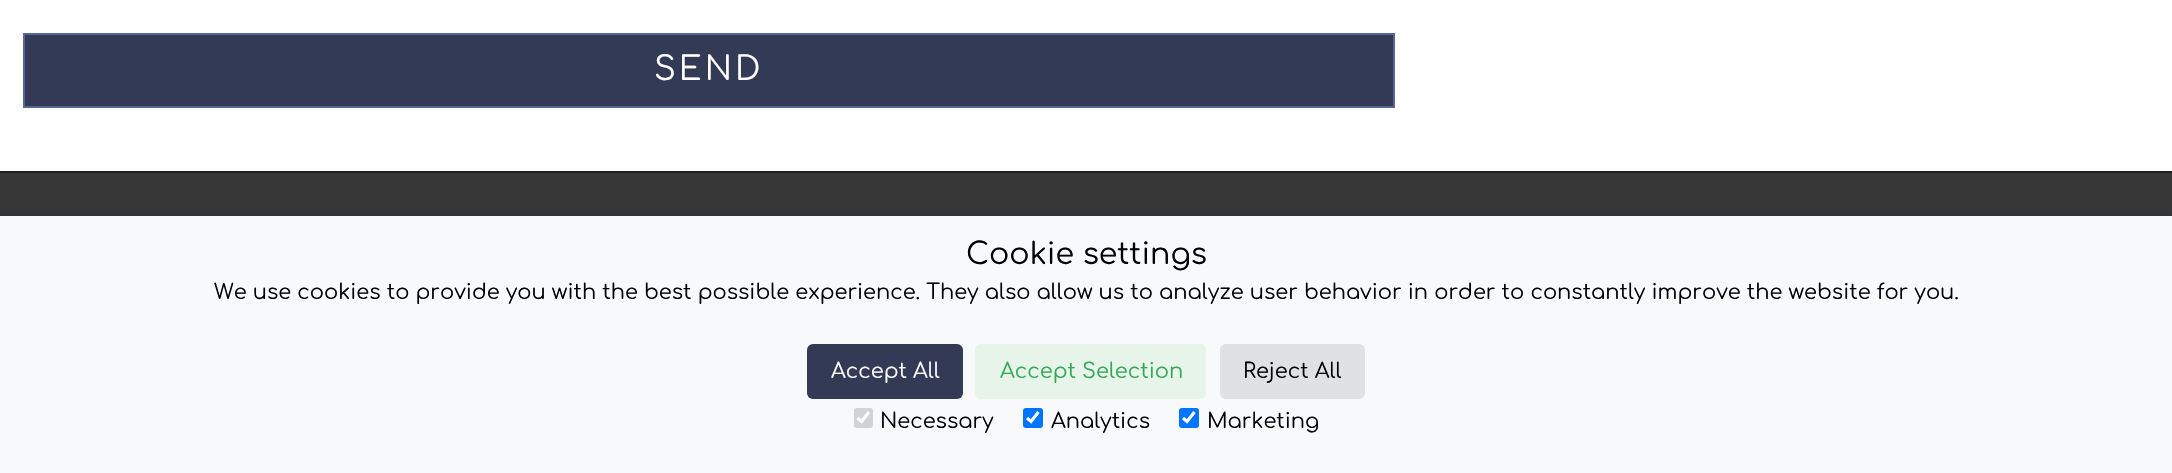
void draw(SkCanvas* canvas) {
    SkPaint paint;
    paint.setAntiAlias(true);
    auto spacedText = [&](const char* s, float x, float y, const SkFont& font, const SkPaint& ink, float letter, float word) {
        std::vector<SkGlyphID> glyphs(font.countText(s, strlen(s), SkTextEncoding::kUTF8));
        std::vector<float> xs(glyphs.size());
        font.textToGlyphs(s, strlen(s), SkTextEncoding::kUTF8, glyphs);
        font.getXPos(glyphs, xs, x);
        float extra = 0;
        for (size_t i = 0; i < glyphs.size(); i++) {
            xs[i] += extra;
            extra += letter + word * (glyphs[i] == font.unicharToGlyph(' '));
        }
        canvas->drawTextBlob(SkTextBlob::MakeFromPosHGlyphs(glyphs, xs, y, font), 0, 0, ink);
    };
    canvas->clear(0xFFFFFFFF);
    paint.setColor(0xFF333A56);
    canvas->drawRect(SkRect::MakeXYWH(24, 34, 1370, 73), paint);
    paint.setStyle(SkPaint::kStroke_Style);
    paint.setStrokeWidth(2);
    paint.setColor(0xFF596596);
    canvas->drawRect(SkRect::MakeXYWH(24, 34, 1370, 73), paint);
    SkFont font1(fontMgr->matchFamilyStyle("Comfortaa", SkFontStyle::Normal()), 33);
    font1.setSubpixel(true);
    paint.setStyle(SkPaint::kFill_Style);
    paint.setColor(0xFFFFFFFF);
    spacedText("SEND", 654, 80, font1, paint, 3, 0);
    paint.setColor(0xFF373737);
    canvas->drawRect(SkRect::MakeXYWH(0, 173, 2172, 43), paint);
    paint.setColor(0xFF201E1E);
    canvas->drawRect(SkRect::MakeXYWH(0, 171, 2172, 2), paint);
    paint.setColor(0x1A000000);
    paint.setMaskFilter(SkMaskFilter::MakeBlur(kNormal_SkBlurStyle, 7.5f));
    canvas->drawRect(SkRect::MakeXYWH(0, 213, 2172, 258), paint);
    paint.setMaskFilter(nullptr);
    paint.setColor(0xFFF8F9FA);
    canvas->drawRect(SkRect::MakeXYWH(0, 216, 2172, 257), paint);
    SkFont font2(fontMgr->matchFamilyStyle("Comfortaa", SkFontStyle::Normal()), 30);
    font2.setSubpixel(true);
    paint.setColor(0xFF000000);
    canvas->drawString("Cookie settings", 966, 264, font2, paint);
    SkFont font3(fontMgr->matchFamilyStyle("Comfortaa", SkFontStyle::Normal()), 21);
    font3.setSubpixel(true);
    canvas->drawString("We use cookies to provide you with the best possible experience. They also allow us to analyze user behavior in order to constantly improve the website for you.", 214, 299, font3, paint);
    paint.setColor(0xFF333A56);
    canvas->drawRoundRect(SkRect::MakeXYWH(807, 344, 156, 55), 6, 6, paint);
    paint.setColor(0xFFFFFFFF);
    canvas->drawString("Accept All", 831, 378, font3, paint);
    paint.setColor(0xFFE6F4EA);
    canvas->drawRoundRect(SkRect::MakeXYWH(975, 344, 231, 55), 6, 6, paint);
    paint.setColor(0xFF34A853);
    canvas->drawString("Accept Selection", 1000, 378, font3, paint);
    paint.setColor(0xFFDFE1E5);
    canvas->drawRoundRect(SkRect::MakeXYWH(1220, 344, 145, 55), 6, 6, paint);
    paint.setColor(0xFF000000);
    canvas->drawString("Reject All", 1243, 378, font3, paint);
    paint.setColor(0xFFD1D2D2);
    canvas->drawRoundRect(SkRect::MakeXYWH(854, 408, 19, 20), 3, 3, paint);
    paint.setStyle(SkPaint::kStroke_Style);
    paint.setStrokeWidth(3.1f);
    paint.setColor(0xFFFFFFFF);
    canvas->drawPath(SkPathBuilder().moveTo(857.5f, 418).lineTo(861.5f, 421.5f).lineTo(869, 412).detach(), paint);
    paint.setStyle(SkPaint::kFill_Style);
    paint.setColor(0xFF000000);
    canvas->drawString("Necessary", 880, 428, font3, paint);
    paint.setColor(0xFF0075FF);
    canvas->drawRoundRect(SkRect::MakeXYWH(1023, 408, 20, 20), 3, 3, paint);
    paint.setStyle(SkPaint::kStroke_Style);
    paint.setColor(0xFFFFFFFF);
    canvas->drawPath(SkPathBuilder().moveTo(1027, 418).lineTo(1031, 421.5f).lineTo(1038.5f, 412).detach(), paint);
    paint.setStyle(SkPaint::kFill_Style);
    paint.setColor(0xFF000000);
    canvas->drawString("Analytics", 1051, 428, font3, paint);
    paint.setColor(0xFF0075FF);
    canvas->drawRoundRect(SkRect::MakeXYWH(1179, 408, 20, 20), 3, 3, paint);
    paint.setStyle(SkPaint::kStroke_Style);
    paint.setColor(0xFFFFFFFF);
    canvas->drawPath(SkPathBuilder().moveTo(1183, 418).lineTo(1187, 421.5f).lineTo(1194.5f, 412).detach(), paint);
    paint.setStyle(SkPaint::kFill_Style);
    paint.setColor(0xFF000000);
    canvas->drawString("Marketing", 1207, 428, font3, paint);
}
